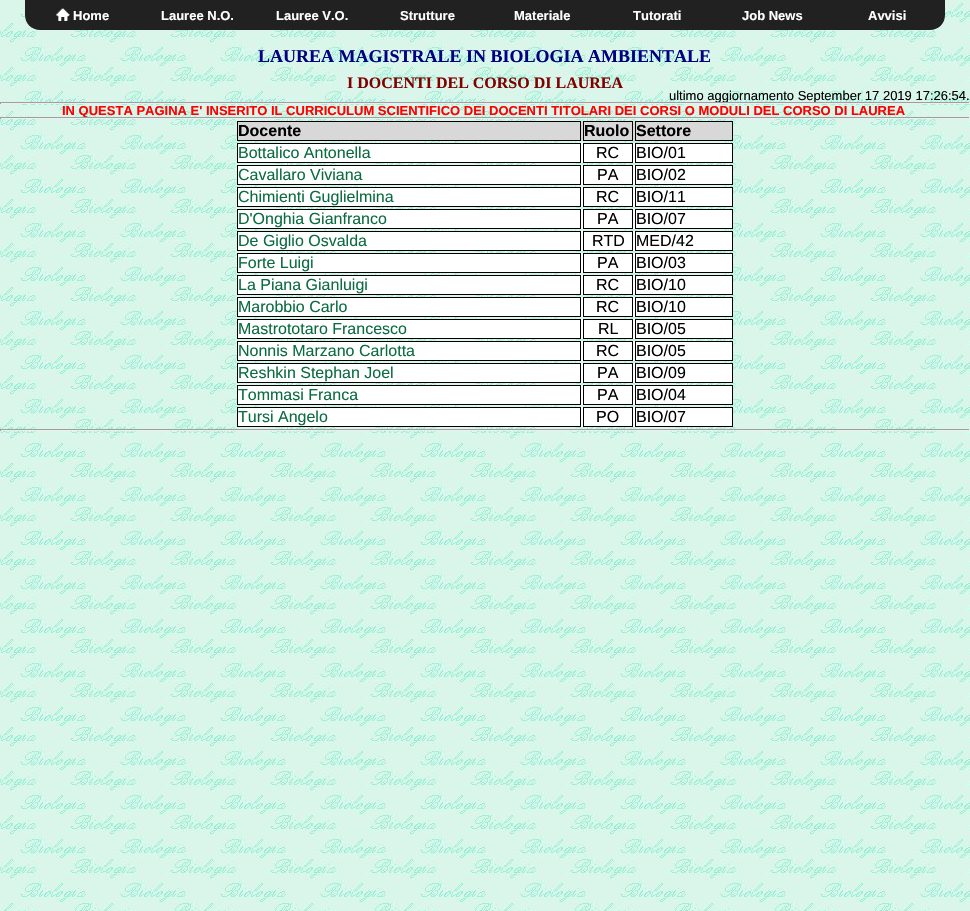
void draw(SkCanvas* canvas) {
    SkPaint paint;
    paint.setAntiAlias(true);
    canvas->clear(0xFFFFFFFF);
    canvas->drawImageRect(SkImages::DeferredFromEncodedData(SkData::MakeFromFileName("img1.png")), SkRect::MakeXYWH(0, 0, 970, 911), SkSamplingOptions());
    paint.setColor(0xFF212121);
    canvas->drawPath(SkPathBuilder().moveTo(25, 0).lineTo(945, 0).lineTo(945, 15).cubicTo(945, 23.5f, 938.5f, 30, 930, 30).lineTo(40, 30).cubicTo(31.5f, 30, 25, 23.5f, 25, 15).close().detach(), paint);
    canvas->drawImageRect(SkImages::DeferredFromEncodedData(SkData::MakeFromFileName("img2.png")), SkRect::MakeXYWH(56, 8, 14, 13), SkSamplingOptions());
    SkFont font1(fontMgr->matchFamilyStyle("Liberation Sans", SkFontStyle::Bold()), 13);
    font1.setSubpixel(true);
    paint.setColor(0xFFFFFFFF);
    canvas->drawString("Home", 73, 20, font1, paint);
    canvas->drawString("Lauree N.O.", 161, 20, font1, paint);
    canvas->drawString("Lauree V.O.", 276, 20, font1, paint);
    canvas->drawString("Strutture", 400, 20, font1, paint);
    canvas->drawString("Materiale", 514, 20, font1, paint);
    canvas->drawString("Tutorati", 633, 20, font1, paint);
    canvas->drawString("Job News", 742, 20, font1, paint);
    canvas->drawString("Avvisi", 868, 20, font1, paint);
    SkFont font2(fontMgr->matchFamilyStyle("Liberation Serif", SkFontStyle::Bold()), 18);
    font2.setSubpixel(true);
    paint.setColor(0xFF000080);
    canvas->drawString("LAUREA MAGISTRALE IN BIOLOGIA AMBIENTALE", 258, 62, font2, paint);
    SkFont font3(fontMgr->matchFamilyStyle("Liberation Serif", SkFontStyle::Bold()), 16);
    font3.setSubpixel(true);
    paint.setColor(0xFF800000);
    canvas->drawString("I DOCENTI DEL CORSO DI LAUREA", 347, 88, font3, paint);
    SkFont font4(fontMgr->matchFamilyStyle("Liberation Sans", SkFontStyle::Normal()), 13);
    font4.setSubpixel(true);
    paint.setColor(0xFF000000);
    canvas->drawString("ultimo aggiornamento September 17 2019 17:26:54.", 669, 100, font4, paint);
    paint.setColor(0xFF9F9F9F);
    canvas->drawRect(SkRect::MakeXYWH(0, 102, 970, 1), paint);
    paint.setColor(0xFFEEEEEE);
    canvas->drawRect(SkRect::MakeXYWH(969, 102, 1, 2), paint);
    canvas->drawRect(SkRect::MakeXYWH(0, 103, 970, 1), paint);
    paint.setColor(0xFF9F9F9F);
    canvas->drawRect(SkRect::MakeXYWH(0, 102, 1, 2), paint);
    paint.setColor(0xFFFF0000);
    canvas->drawString("IN QUESTA PAGINA E' INSERITO IL CURRICULUM SCIENTIFICO DEI DOCENTI TITOLARI DEI CORSI O MODULI DEL CORSO DI LAUREA", 62, 115, font1, paint);
    paint.setColor(0xFF9F9F9F);
    canvas->drawRect(SkRect::MakeXYWH(0, 117, 970, 1), paint);
    paint.setColor(0xFFEEEEEE);
    canvas->drawRect(SkRect::MakeXYWH(969, 117, 1, 2), paint);
    canvas->drawRect(SkRect::MakeXYWH(0, 118, 970, 1), paint);
    paint.setColor(0xFF9F9F9F);
    canvas->drawRect(SkRect::MakeXYWH(0, 117, 1, 2), paint);
    paint.setColor(0xFFD8D8D8);
    canvas->drawRect(SkRect::MakeXYWH(238, 121, 494, 20), paint);
    paint.setStyle(SkPaint::kStroke_Style);
    paint.setStrokeWidth(1);
    paint.setColor(0xFF000000);
    canvas->drawRect(SkRect::MakeXYWH(237.5f, 121.5f, 343, 19), paint);
    SkFont font5(fontMgr->matchFamilyStyle("Liberation Sans", SkFontStyle::Bold()), 16);
    font5.setSubpixel(true);
    paint.setStyle(SkPaint::kFill_Style);
    canvas->drawString("Docente", 238, 136, font5, paint);
    paint.setStyle(SkPaint::kStroke_Style);
    canvas->drawRect(SkRect::MakeXYWH(583.5f, 121.5f, 49, 19), paint);
    paint.setStyle(SkPaint::kFill_Style);
    canvas->drawString("Ruolo", 584, 136, font5, paint);
    paint.setStyle(SkPaint::kStroke_Style);
    canvas->drawRect(SkRect::MakeXYWH(635.5f, 121.5f, 97, 19), paint);
    paint.setStyle(SkPaint::kFill_Style);
    canvas->drawString("Settore", 636, 136, font5, paint);
    paint.setColor(0xFFFFFFFF);
    canvas->drawRect(SkRect::MakeXYWH(238, 143, 494, 20), paint);
    paint.setStyle(SkPaint::kStroke_Style);
    paint.setColor(0xFF000000);
    canvas->drawRect(SkRect::MakeXYWH(237.5f, 143.5f, 343, 19), paint);
    SkFont font6(fontMgr->matchFamilyStyle("Liberation Sans", SkFontStyle::Normal()), 16);
    font6.setSubpixel(true);
    paint.setStyle(SkPaint::kFill_Style);
    paint.setColor(0xFF0B6C41);
    canvas->drawString("Bottalico Antonella", 238, 158, font6, paint);
    paint.setStyle(SkPaint::kStroke_Style);
    paint.setColor(0xFF000000);
    canvas->drawRect(SkRect::MakeXYWH(583.5f, 143.5f, 49, 19), paint);
    paint.setStyle(SkPaint::kFill_Style);
    canvas->drawString("RC", 596, 158, font6, paint);
    paint.setStyle(SkPaint::kStroke_Style);
    canvas->drawRect(SkRect::MakeXYWH(635.5f, 143.5f, 97, 19), paint);
    paint.setStyle(SkPaint::kFill_Style);
    canvas->drawString("BIO/01", 636, 158, font6, paint);
    paint.setColor(0xFFFFFFFF);
    canvas->drawRect(SkRect::MakeXYWH(238, 165, 494, 20), paint);
    paint.setStyle(SkPaint::kStroke_Style);
    paint.setColor(0xFF000000);
    canvas->drawRect(SkRect::MakeXYWH(237.5f, 165.5f, 343, 19), paint);
    paint.setStyle(SkPaint::kFill_Style);
    paint.setColor(0xFF0B6C41);
    canvas->drawString("Cavallaro Viviana", 238, 180, font6, paint);
    paint.setStyle(SkPaint::kStroke_Style);
    paint.setColor(0xFF000000);
    canvas->drawRect(SkRect::MakeXYWH(583.5f, 165.5f, 49, 19), paint);
    paint.setStyle(SkPaint::kFill_Style);
    canvas->drawString("PA", 597, 180, font6, paint);
    paint.setStyle(SkPaint::kStroke_Style);
    canvas->drawRect(SkRect::MakeXYWH(635.5f, 165.5f, 97, 19), paint);
    paint.setStyle(SkPaint::kFill_Style);
    canvas->drawString("BIO/02", 636, 180, font6, paint);
    paint.setColor(0xFFFFFFFF);
    canvas->drawRect(SkRect::MakeXYWH(238, 187, 494, 20), paint);
    paint.setStyle(SkPaint::kStroke_Style);
    paint.setColor(0xFF000000);
    canvas->drawRect(SkRect::MakeXYWH(237.5f, 187.5f, 343, 19), paint);
    paint.setStyle(SkPaint::kFill_Style);
    paint.setColor(0xFF0B6C41);
    canvas->drawString("Chimienti Guglielmina", 238, 202, font6, paint);
    paint.setStyle(SkPaint::kStroke_Style);
    paint.setColor(0xFF000000);
    canvas->drawRect(SkRect::MakeXYWH(583.5f, 187.5f, 49, 19), paint);
    paint.setStyle(SkPaint::kFill_Style);
    canvas->drawString("RC", 596, 202, font6, paint);
    paint.setStyle(SkPaint::kStroke_Style);
    canvas->drawRect(SkRect::MakeXYWH(635.5f, 187.5f, 97, 19), paint);
    paint.setStyle(SkPaint::kFill_Style);
    canvas->drawString("BIO/11", 636, 202, font6, paint);
    paint.setColor(0xFFFFFFFF);
    canvas->drawRect(SkRect::MakeXYWH(238, 209, 494, 20), paint);
    paint.setStyle(SkPaint::kStroke_Style);
    paint.setColor(0xFF000000);
    canvas->drawRect(SkRect::MakeXYWH(237.5f, 209.5f, 343, 19), paint);
    paint.setStyle(SkPaint::kFill_Style);
    paint.setColor(0xFF0B6C41);
    canvas->drawString("D'Onghia Gianfranco", 238, 224, font6, paint);
    paint.setStyle(SkPaint::kStroke_Style);
    paint.setColor(0xFF000000);
    canvas->drawRect(SkRect::MakeXYWH(583.5f, 209.5f, 49, 19), paint);
    paint.setStyle(SkPaint::kFill_Style);
    canvas->drawString("PA", 597, 224, font6, paint);
    paint.setStyle(SkPaint::kStroke_Style);
    canvas->drawRect(SkRect::MakeXYWH(635.5f, 209.5f, 97, 19), paint);
    paint.setStyle(SkPaint::kFill_Style);
    canvas->drawString("BIO/07", 636, 224, font6, paint);
    paint.setColor(0xFFFFFFFF);
    canvas->drawRect(SkRect::MakeXYWH(238, 231, 494, 20), paint);
    paint.setStyle(SkPaint::kStroke_Style);
    paint.setColor(0xFF000000);
    canvas->drawRect(SkRect::MakeXYWH(237.5f, 231.5f, 343, 19), paint);
    paint.setStyle(SkPaint::kFill_Style);
    paint.setColor(0xFF0B6C41);
    canvas->drawString("De Giglio Osvalda", 238, 246, font6, paint);
    paint.setStyle(SkPaint::kStroke_Style);
    paint.setColor(0xFF000000);
    canvas->drawRect(SkRect::MakeXYWH(583.5f, 231.5f, 49, 19), paint);
    paint.setStyle(SkPaint::kFill_Style);
    canvas->drawString("RTD", 592, 246, font6, paint);
    paint.setStyle(SkPaint::kStroke_Style);
    canvas->drawRect(SkRect::MakeXYWH(635.5f, 231.5f, 97, 19), paint);
    paint.setStyle(SkPaint::kFill_Style);
    canvas->drawString("MED/42", 636, 246, font6, paint);
    paint.setColor(0xFFFFFFFF);
    canvas->drawRect(SkRect::MakeXYWH(238, 253, 494, 20), paint);
    paint.setStyle(SkPaint::kStroke_Style);
    paint.setColor(0xFF000000);
    canvas->drawRect(SkRect::MakeXYWH(237.5f, 253.5f, 343, 19), paint);
    paint.setStyle(SkPaint::kFill_Style);
    paint.setColor(0xFF0B6C41);
    canvas->drawString("Forte Luigi", 238, 268, font6, paint);
    paint.setStyle(SkPaint::kStroke_Style);
    paint.setColor(0xFF000000);
    canvas->drawRect(SkRect::MakeXYWH(583.5f, 253.5f, 49, 19), paint);
    paint.setStyle(SkPaint::kFill_Style);
    canvas->drawString("PA", 597, 268, font6, paint);
    paint.setStyle(SkPaint::kStroke_Style);
    canvas->drawRect(SkRect::MakeXYWH(635.5f, 253.5f, 97, 19), paint);
    paint.setStyle(SkPaint::kFill_Style);
    canvas->drawString("BIO/03", 636, 268, font6, paint);
    paint.setColor(0xFFFFFFFF);
    canvas->drawRect(SkRect::MakeXYWH(238, 275, 494, 20), paint);
    paint.setStyle(SkPaint::kStroke_Style);
    paint.setColor(0xFF000000);
    canvas->drawRect(SkRect::MakeXYWH(237.5f, 275.5f, 343, 19), paint);
    paint.setStyle(SkPaint::kFill_Style);
    paint.setColor(0xFF0B6C41);
    canvas->drawString("La Piana Gianluigi", 238, 290, font6, paint);
    paint.setStyle(SkPaint::kStroke_Style);
    paint.setColor(0xFF000000);
    canvas->drawRect(SkRect::MakeXYWH(583.5f, 275.5f, 49, 19), paint);
    paint.setStyle(SkPaint::kFill_Style);
    canvas->drawString("RC", 596, 290, font6, paint);
    paint.setStyle(SkPaint::kStroke_Style);
    canvas->drawRect(SkRect::MakeXYWH(635.5f, 275.5f, 97, 19), paint);
    paint.setStyle(SkPaint::kFill_Style);
    canvas->drawString("BIO/10", 636, 290, font6, paint);
    paint.setColor(0xFFFFFFFF);
    canvas->drawRect(SkRect::MakeXYWH(238, 297, 494, 20), paint);
    paint.setStyle(SkPaint::kStroke_Style);
    paint.setColor(0xFF000000);
    canvas->drawRect(SkRect::MakeXYWH(237.5f, 297.5f, 343, 19), paint);
    paint.setStyle(SkPaint::kFill_Style);
    paint.setColor(0xFF0B6C41);
    canvas->drawString("Marobbio Carlo", 238, 312, font6, paint);
    paint.setStyle(SkPaint::kStroke_Style);
    paint.setColor(0xFF000000);
    canvas->drawRect(SkRect::MakeXYWH(583.5f, 297.5f, 49, 19), paint);
    paint.setStyle(SkPaint::kFill_Style);
    canvas->drawString("RC", 596, 312, font6, paint);
    paint.setStyle(SkPaint::kStroke_Style);
    canvas->drawRect(SkRect::MakeXYWH(635.5f, 297.5f, 97, 19), paint);
    paint.setStyle(SkPaint::kFill_Style);
    canvas->drawString("BIO/10", 636, 312, font6, paint);
    paint.setColor(0xFFFFFFFF);
    canvas->drawRect(SkRect::MakeXYWH(238, 319, 494, 20), paint);
    paint.setStyle(SkPaint::kStroke_Style);
    paint.setColor(0xFF000000);
    canvas->drawRect(SkRect::MakeXYWH(237.5f, 319.5f, 343, 19), paint);
    paint.setStyle(SkPaint::kFill_Style);
    paint.setColor(0xFF0B6C41);
    canvas->drawString("Mastrototaro Francesco", 238, 334, font6, paint);
    paint.setStyle(SkPaint::kStroke_Style);
    paint.setColor(0xFF000000);
    canvas->drawRect(SkRect::MakeXYWH(583.5f, 319.5f, 49, 19), paint);
    paint.setStyle(SkPaint::kFill_Style);
    canvas->drawString("RL", 598, 334, font6, paint);
    paint.setStyle(SkPaint::kStroke_Style);
    canvas->drawRect(SkRect::MakeXYWH(635.5f, 319.5f, 97, 19), paint);
    paint.setStyle(SkPaint::kFill_Style);
    canvas->drawString("BIO/05", 636, 334, font6, paint);
    paint.setColor(0xFFFFFFFF);
    canvas->drawRect(SkRect::MakeXYWH(238, 341, 494, 20), paint);
    paint.setStyle(SkPaint::kStroke_Style);
    paint.setColor(0xFF000000);
    canvas->drawRect(SkRect::MakeXYWH(237.5f, 341.5f, 343, 19), paint);
    paint.setStyle(SkPaint::kFill_Style);
    paint.setColor(0xFF0B6C41);
    canvas->drawString("Nonnis Marzano Carlotta", 238, 356, font6, paint);
    paint.setStyle(SkPaint::kStroke_Style);
    paint.setColor(0xFF000000);
    canvas->drawRect(SkRect::MakeXYWH(583.5f, 341.5f, 49, 19), paint);
    paint.setStyle(SkPaint::kFill_Style);
    canvas->drawString("RC", 596, 356, font6, paint);
    paint.setStyle(SkPaint::kStroke_Style);
    canvas->drawRect(SkRect::MakeXYWH(635.5f, 341.5f, 97, 19), paint);
    paint.setStyle(SkPaint::kFill_Style);
    canvas->drawString("BIO/05", 636, 356, font6, paint);
    paint.setColor(0xFFFFFFFF);
    canvas->drawRect(SkRect::MakeXYWH(238, 363, 494, 20), paint);
    paint.setStyle(SkPaint::kStroke_Style);
    paint.setColor(0xFF000000);
    canvas->drawRect(SkRect::MakeXYWH(237.5f, 363.5f, 343, 19), paint);
    paint.setStyle(SkPaint::kFill_Style);
    paint.setColor(0xFF0B6C41);
    canvas->drawString("Reshkin Stephan Joel", 238, 378, font6, paint);
    paint.setStyle(SkPaint::kStroke_Style);
    paint.setColor(0xFF000000);
    canvas->drawRect(SkRect::MakeXYWH(583.5f, 363.5f, 49, 19), paint);
    paint.setStyle(SkPaint::kFill_Style);
    canvas->drawString("PA", 597, 378, font6, paint);
    paint.setStyle(SkPaint::kStroke_Style);
    canvas->drawRect(SkRect::MakeXYWH(635.5f, 363.5f, 97, 19), paint);
    paint.setStyle(SkPaint::kFill_Style);
    canvas->drawString("BIO/09", 636, 378, font6, paint);
    paint.setColor(0xFFFFFFFF);
    canvas->drawRect(SkRect::MakeXYWH(238, 385, 494, 20), paint);
    paint.setStyle(SkPaint::kStroke_Style);
    paint.setColor(0xFF000000);
    canvas->drawRect(SkRect::MakeXYWH(237.5f, 385.5f, 343, 19), paint);
    paint.setStyle(SkPaint::kFill_Style);
    paint.setColor(0xFF0B6C41);
    canvas->drawString("Tommasi Franca", 238, 400, font6, paint);
    paint.setStyle(SkPaint::kStroke_Style);
    paint.setColor(0xFF000000);
    canvas->drawRect(SkRect::MakeXYWH(583.5f, 385.5f, 49, 19), paint);
    paint.setStyle(SkPaint::kFill_Style);
    canvas->drawString("PA", 597, 400, font6, paint);
    paint.setStyle(SkPaint::kStroke_Style);
    canvas->drawRect(SkRect::MakeXYWH(635.5f, 385.5f, 97, 19), paint);
    paint.setStyle(SkPaint::kFill_Style);
    canvas->drawString("BIO/04", 636, 400, font6, paint);
    paint.setColor(0xFFFFFFFF);
    canvas->drawRect(SkRect::MakeXYWH(238, 407, 494, 20), paint);
    paint.setStyle(SkPaint::kStroke_Style);
    paint.setColor(0xFF000000);
    canvas->drawRect(SkRect::MakeXYWH(237.5f, 407.5f, 343, 19), paint);
    paint.setStyle(SkPaint::kFill_Style);
    paint.setColor(0xFF0B6C41);
    canvas->drawString("Tursi Angelo", 238, 422, font6, paint);
    paint.setStyle(SkPaint::kStroke_Style);
    paint.setColor(0xFF000000);
    canvas->drawRect(SkRect::MakeXYWH(583.5f, 407.5f, 49, 19), paint);
    paint.setStyle(SkPaint::kFill_Style);
    canvas->drawString("PO", 596, 422, font6, paint);
    paint.setStyle(SkPaint::kStroke_Style);
    canvas->drawRect(SkRect::MakeXYWH(635.5f, 407.5f, 97, 19), paint);
    paint.setStyle(SkPaint::kFill_Style);
    canvas->drawString("BIO/07", 636, 422, font6, paint);
    paint.setColor(0xFF9F9F9F);
    canvas->drawRect(SkRect::MakeXYWH(0, 429, 970, 1), paint);
    paint.setColor(0xFFEEEEEE);
    canvas->drawRect(SkRect::MakeXYWH(969, 429, 1, 2), paint);
    canvas->drawRect(SkRect::MakeXYWH(0, 430, 970, 1), paint);
    paint.setColor(0xFF9F9F9F);
    canvas->drawRect(SkRect::MakeXYWH(0, 429, 1, 2), paint);
}
